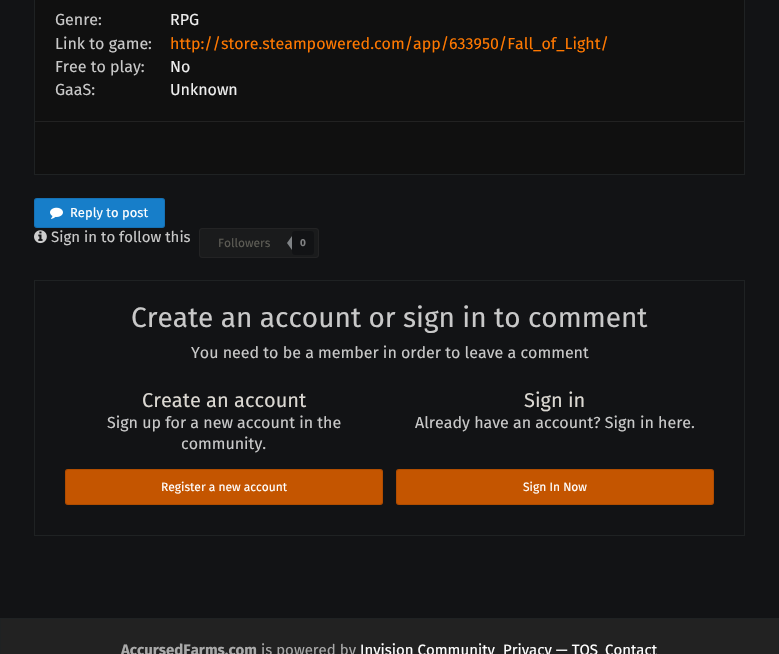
void draw(SkCanvas* canvas) {
    SkPaint paint;
    paint.setAntiAlias(true);
    canvas->clear(0xFF121315);
    paint.setColor(0xFF101010);
    canvas->drawRect(SkRect::MakeXYWH(34.5f, -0.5f, 710, 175), paint);
    paint.setStyle(SkPaint::kStroke_Style);
    paint.setStrokeWidth(1);
    paint.setColor(0xFF1F2223);
    canvas->drawRect(SkRect::MakeXYWH(34.5f, -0.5f, 710, 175), paint);
    SkFont font1(fontMgr->matchFamilyStyle("Fira Sans", SkFontStyle::Normal()), 16);
    font1.setSubpixel(true);
    paint.setStyle(SkPaint::kFill_Style);
    paint.setColor(0xFFC9C9C9);
    canvas->drawString("Genre:", 55, 25, font1, paint);
    paint.setColor(0xFFEEEEEE);
    canvas->drawString("RPG", 170, 25, font1, paint);
    paint.setColor(0xFFC9C9C9);
    canvas->drawString("Link to game:", 55, 49, font1, paint);
    paint.setColor(0xFFFF7800);
    canvas->drawString("http://store.steampowered.com/app/633950/Fall_of_Light/", 170, 49, font1, paint);
    paint.setColor(0xFFC9C9C9);
    canvas->drawString("Free to play:", 55, 72, font1, paint);
    paint.setColor(0xFFEEEEEE);
    canvas->drawString("No", 170, 72, font1, paint);
    paint.setColor(0xFFC9C9C9);
    canvas->drawString("GaaS:", 55, 95, font1, paint);
    paint.setColor(0xFFEEEEEE);
    canvas->drawString("Unknown", 170, 95, font1, paint);
    paint.setColor(0xFF222222);
    canvas->drawRect(SkRect::MakeXYWH(35, 121, 709, 1), paint);
    paint.setColor(0xFF177EC9);
    canvas->drawRoundRect(SkRect::MakeXYWH(34, 198, 131, 30), 3, 3, paint);
    paint.setStyle(SkPaint::kStroke_Style);
    paint.setColor(0x1A000000);
    canvas->drawRoundRect(SkRect::MakeXYWH(34.5f, 198.5f, 130, 29), 2.5f, 2.5f, paint);
    canvas->drawImageRect(SkImages::DeferredFromEncodedData(SkData::MakeFromFileName("img1.png")), SkRect::MakeXYWH(50, 207, 13, 12), SkSamplingOptions());
    SkFont font2(fontMgr->matchFamilyStyle("Fira Sans", SkFontStyle::Normal()), 13);
    font2.setSubpixel(true);
    paint.setStyle(SkPaint::kFill_Style);
    paint.setColor(0xFFFFFFFF);
    canvas->drawString("Reply to post", 70, 217, font2, paint);
    canvas->drawImageRect(SkImages::DeferredFromEncodedData(SkData::MakeFromFileName("img2.png")), SkRect::MakeXYWH(34, 230, 13, 14), SkSamplingOptions());
    SkFont font3(fontMgr->matchFamilyStyle("Fira Sans", SkFontStyle::Normal()), 15);
    font3.setSubpixel(true);
    paint.setColor(0xFFC9C9C9);
    canvas->drawString("Sign in to follow this", 51, 242, font3, paint);
    paint.setColor(0xFF1A1B1C);
    canvas->drawRoundRect(SkRect::MakeXYWH(199.5f, 228.5f, 119, 29), 2.5f, 2.5f, paint);
    paint.setStyle(SkPaint::kStroke_Style);
    paint.setColor(0xFF232324);
    canvas->drawRoundRect(SkRect::MakeXYWH(199.5f, 228.5f, 119, 29), 2.5f, 2.5f, paint);
    SkFont font4(fontMgr->matchFamilyStyle("Fira Sans", SkFontStyle::Normal()), 12);
    font4.setSubpixel(true);
    paint.setStyle(SkPaint::kFill_Style);
    paint.setColor(0xFF5C5B54);
    canvas->drawString("Followers", 218, 247, font4, paint);
    paint.setColor(0xFF808386);
    canvas->drawPath(SkPathBuilder().moveTo(292, 236).lineTo(292, 250).lineTo(287, 243).close().detach(), paint);
    paint.setColor(0xFF121315);
    canvas->drawRoundRect(SkRect::MakeXYWH(292, 231, 22, 24), 3, 3, paint);
    SkFont font5(fontMgr->matchFamilyStyle("Fira Sans", SkFontStyle::Bold()), 10);
    font5.setSubpixel(true);
    paint.setColor(0xFF808182);
    canvas->drawString("0", 300, 246, font5, paint);
    paint.setStyle(SkPaint::kStroke_Style);
    paint.setColor(0xFF1F2223);
    canvas->drawRect(SkRect::MakeXYWH(34.5f, 280.5f, 710, 255), paint);
    SkFont font6(fontMgr->matchFamilyStyle("Fira Sans", SkFontStyle::Normal()), 28);
    font6.setSubpixel(true);
    paint.setStyle(SkPaint::kFill_Style);
    paint.setColor(0xFFC9C9C9);
    canvas->drawString("Create an account or sign in to comment", 131, 327, font6, paint);
    canvas->drawString("You need to be a member in order to leave a comment", 191, 358, font1, paint);
    SkFont font7(fontMgr->matchFamilyStyle("Fira Sans", SkFontStyle::Normal()), 20);
    font7.setSubpixel(true);
    paint.setColor(0xFFDBD8D2);
    canvas->drawString("Create an account", 142, 407, font7, paint);
    paint.setColor(0xFFC9C9C9);
    canvas->drawString("Sign up for a new account in the", 107, 428, font1, paint);
    canvas->drawString("community.", 181, 449, font1, paint);
    paint.setColor(0xFFC45500);
    canvas->drawRoundRect(SkRect::MakeXYWH(65, 469, 318, 36), 3, 3, paint);
    paint.setStyle(SkPaint::kStroke_Style);
    paint.setColor(0x1A000000);
    canvas->drawRoundRect(SkRect::MakeXYWH(65.5f, 469.5f, 317, 35), 2.5f, 2.5f, paint);
    paint.setStyle(SkPaint::kFill_Style);
    paint.setColor(0xFFFFFFFF);
    canvas->drawString("Register a new account", 161, 491, font4, paint);
    paint.setColor(0xFFDBD8D2);
    canvas->drawString("Sign in", 524, 407, font7, paint);
    paint.setColor(0xFFC9C9C9);
    canvas->drawString("Already have an account? Sign in here.", 415, 428, font1, paint);
    paint.setColor(0xFFC45500);
    canvas->drawRoundRect(SkRect::MakeXYWH(396, 469, 318, 36), 3, 3, paint);
    paint.setStyle(SkPaint::kStroke_Style);
    paint.setColor(0x1A000000);
    canvas->drawRoundRect(SkRect::MakeXYWH(396.5f, 469.5f, 317, 35), 2.5f, 2.5f, paint);
    paint.setStyle(SkPaint::kFill_Style);
    paint.setColor(0xFFFFFFFF);
    canvas->drawString("Sign In Now", 523, 491, font4, paint);
    paint.setColor(0xFF222222);
    canvas->drawRect(SkRect::MakeXYWH(0.5f, 618.5f, 778, 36), paint);
    paint.setStyle(SkPaint::kStroke_Style);
    paint.setColor(0xFF1F2223);
    canvas->drawRect(SkRect::MakeXYWH(0.5f, 618.5f, 778, 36), paint);
    SkFont font8(fontMgr->matchFamilyStyle("Fira Sans", SkFontStyle::Bold()), 15);
    font8.setSubpixel(true);
    paint.setStyle(SkPaint::kFill_Style);
    paint.setColor(0xFFAAAAAA);
    canvas->drawString("AccursedFarms.com", 121, 655, font8, paint);
    canvas->drawString("is powered by", 261, 655, font3, paint);
    paint.setColor(0xFFFFFFFF);
    canvas->drawString("Invision Community", 360, 655, font3, paint);
    canvas->drawString("Privacy — TOS", 503, 655, font3, paint);
    canvas->drawString("Contact", 605, 655, font3, paint);
}
